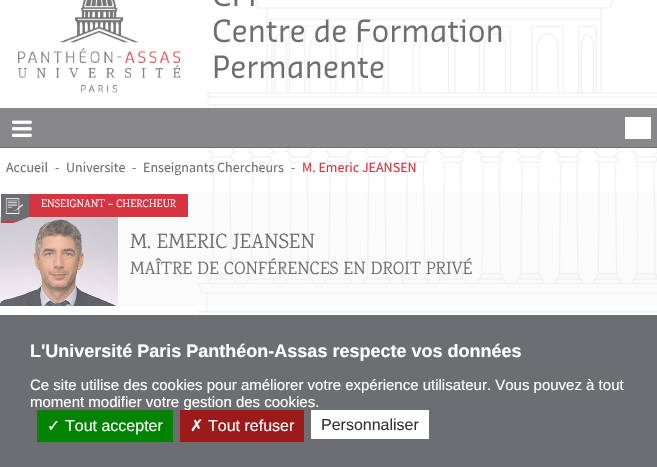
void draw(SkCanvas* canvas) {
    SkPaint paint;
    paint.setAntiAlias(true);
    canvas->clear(0xFFFFFFFF);
    canvas->drawImageRect(SkImages::DeferredFromEncodedData(SkData::MakeFromFileName("img1.png")), SkRect::MakeXYWH(197, 0, 460, 315), SkSamplingOptions());
    canvas->drawImageRect(SkImages::DeferredFromEncodedData(SkData::MakeFromFileName("img2.png")), SkRect::MakeXYWH(17, 0, 164, 93), SkSamplingOptions());
    canvas->drawImageRect(SkImages::DeferredFromEncodedData(SkData::MakeFromFileName("img3.png")), SkRect::MakeXYWH(214, 0, 40, 7), SkSamplingOptions());
    canvas->drawImageRect(SkImages::DeferredFromEncodedData(SkData::MakeFromFileName("img4.png")), SkRect::MakeXYWH(213, 19, 289, 24), SkSamplingOptions());
    canvas->drawImageRect(SkImages::DeferredFromEncodedData(SkData::MakeFromFileName("img5.png")), SkRect::MakeXYWH(214, 55, 170, 24), SkSamplingOptions());
    paint.setColor(0xFF88888A);
    canvas->drawRect(SkRect::MakeXYWH(0, 108, 657, 39), paint);
    paint.setColor(0xFF6D6E71);
    canvas->drawRect(SkRect::MakeXYWH(0, 147, 657, 1), paint);
    canvas->drawImageRect(SkImages::DeferredFromEncodedData(SkData::MakeFromFileName("img6.png")), SkRect::MakeXYWH(12, 120, 20, 17), SkSamplingOptions());
    paint.setColor(0xFFFFFFFF);
    canvas->drawRect(SkRect::MakeXYWH(625, 117, 26, 22), paint);
    SkFont font1(fontMgr->matchFamilyStyle("Source Sans Pro", SkFontStyle::Normal()), 14);
    font1.setSubpixel(true);
    paint.setColor(0xFF6D6E71);
    canvas->drawString("Accueil", 6, 172, font1, paint);
    canvas->drawString("-", 55, 172, font1, paint);
    canvas->drawString("Universite", 66, 172, font1, paint);
    canvas->drawString("-", 132, 172, font1, paint);
    canvas->drawString("Enseignants Chercheurs", 143, 172, font1, paint);
    canvas->drawString("-", 291, 172, font1, paint);
    paint.setColor(0xFFD63440);
    canvas->drawString("M. Emeric JEANSEN", 302, 172, font1, paint);
    canvas->drawImageRect(SkImages::DeferredFromEncodedData(SkData::MakeFromFileName("img8.png")), SkRect::MakeXYWH(0, 217, 118, 89), SkSamplingOptions());
    paint.setColor(0x4DF1F1F1);
    canvas->drawRect(SkRect::MakeXYWH(0, 192, 657, 114), paint);
    paint.setColor(0xFFD63440);
    canvas->drawRect(SkRect::MakeXYWH(29, 194, 159, 23), paint);
    canvas->drawImageRect(SkImages::DeferredFromEncodedData(SkData::MakeFromFileName("img7.png")), SkRect::MakeXYWH(1, 194, 28, 29), SkSamplingOptions());
    SkFont font2(fontMgr->matchFamilyStyle("Karma", SkFontStyle::Normal()), 11);
    font2.setSubpixel(true);
    paint.setColor(0xFFFFFFFF);
    canvas->drawString("ENSEIGNANT – CHERCHEUR", 41, 207, font2, paint);
    SkFont font3(fontMgr->matchFamilyStyle("Karma", SkFontStyle::Normal()), 21);
    font3.setSubpixel(true);
    paint.setColor(0xFF6D6E71);
    canvas->drawString("M. EMERIC JEANSEN", 130, 248, font3, paint);
    SkFont font4(fontMgr->matchFamilyStyle("Karma", SkFontStyle::Normal()), 18);
    font4.setSubpixel(true);
    canvas->drawString("MAÎTRE DE CONFÉRENCES EN DROIT PRIVÉ", 130, 274, font4, paint);
    canvas->drawRect(SkRect::MakeXYWH(0, 315, 657, 152), paint);
    SkFont font5(fontMgr->matchFamilyStyle("Liberation Sans", SkFontStyle::Bold()), 18);
    font5.setSubpixel(true);
    paint.setColor(0xFFFFFFFF);
    canvas->drawString("L'Université Paris Panthéon-Assas respecte vos données", 30, 357, font5, paint);
    SkFont font6(fontMgr->matchFamilyStyle("Liberation Sans", SkFontStyle::Normal()), 15);
    font6.setSubpixel(true);
    canvas->drawString("Ce site utilise des cookies pour améliorer votre expérience utilisateur. Vous pouvez à tout", 30, 390, font6, paint);
    canvas->drawString("moment modifier votre gestion des cookies.", 30, 407, font6, paint);
    paint.setColor(0xFF008300);
    canvas->drawRect(SkRect::MakeXYWH(37, 410, 136, 32), paint);
    SkFont font7(fontMgr->matchFamilyStyle("DejaVu Sans", SkFontStyle::Normal()), 16);
    font7.setSubpixel(true);
    paint.setColor(0xFFFFFFFF);
    canvas->drawString("✓", 47, 431, font7, paint);
    SkFont font8(fontMgr->matchFamilyStyle("Liberation Sans", SkFontStyle::Normal()), 16);
    font8.setSubpixel(true);
    canvas->drawString("Tout accepter", 65, 431, font8, paint);
    paint.setColor(0xFF9C1A1A);
    canvas->drawRect(SkRect::MakeXYWH(180, 410, 124, 32), paint);
    paint.setColor(0xFFFFFFFF);
    canvas->drawString("✗", 190, 431, font7, paint);
    canvas->drawString("Tout refuser", 208, 431, font8, paint);
    canvas->drawRect(SkRect::MakeXYWH(311, 410, 118, 29), paint);
    paint.setColor(0xFF333333);
    canvas->drawString("Personnaliser", 321, 430, font8, paint);
}
